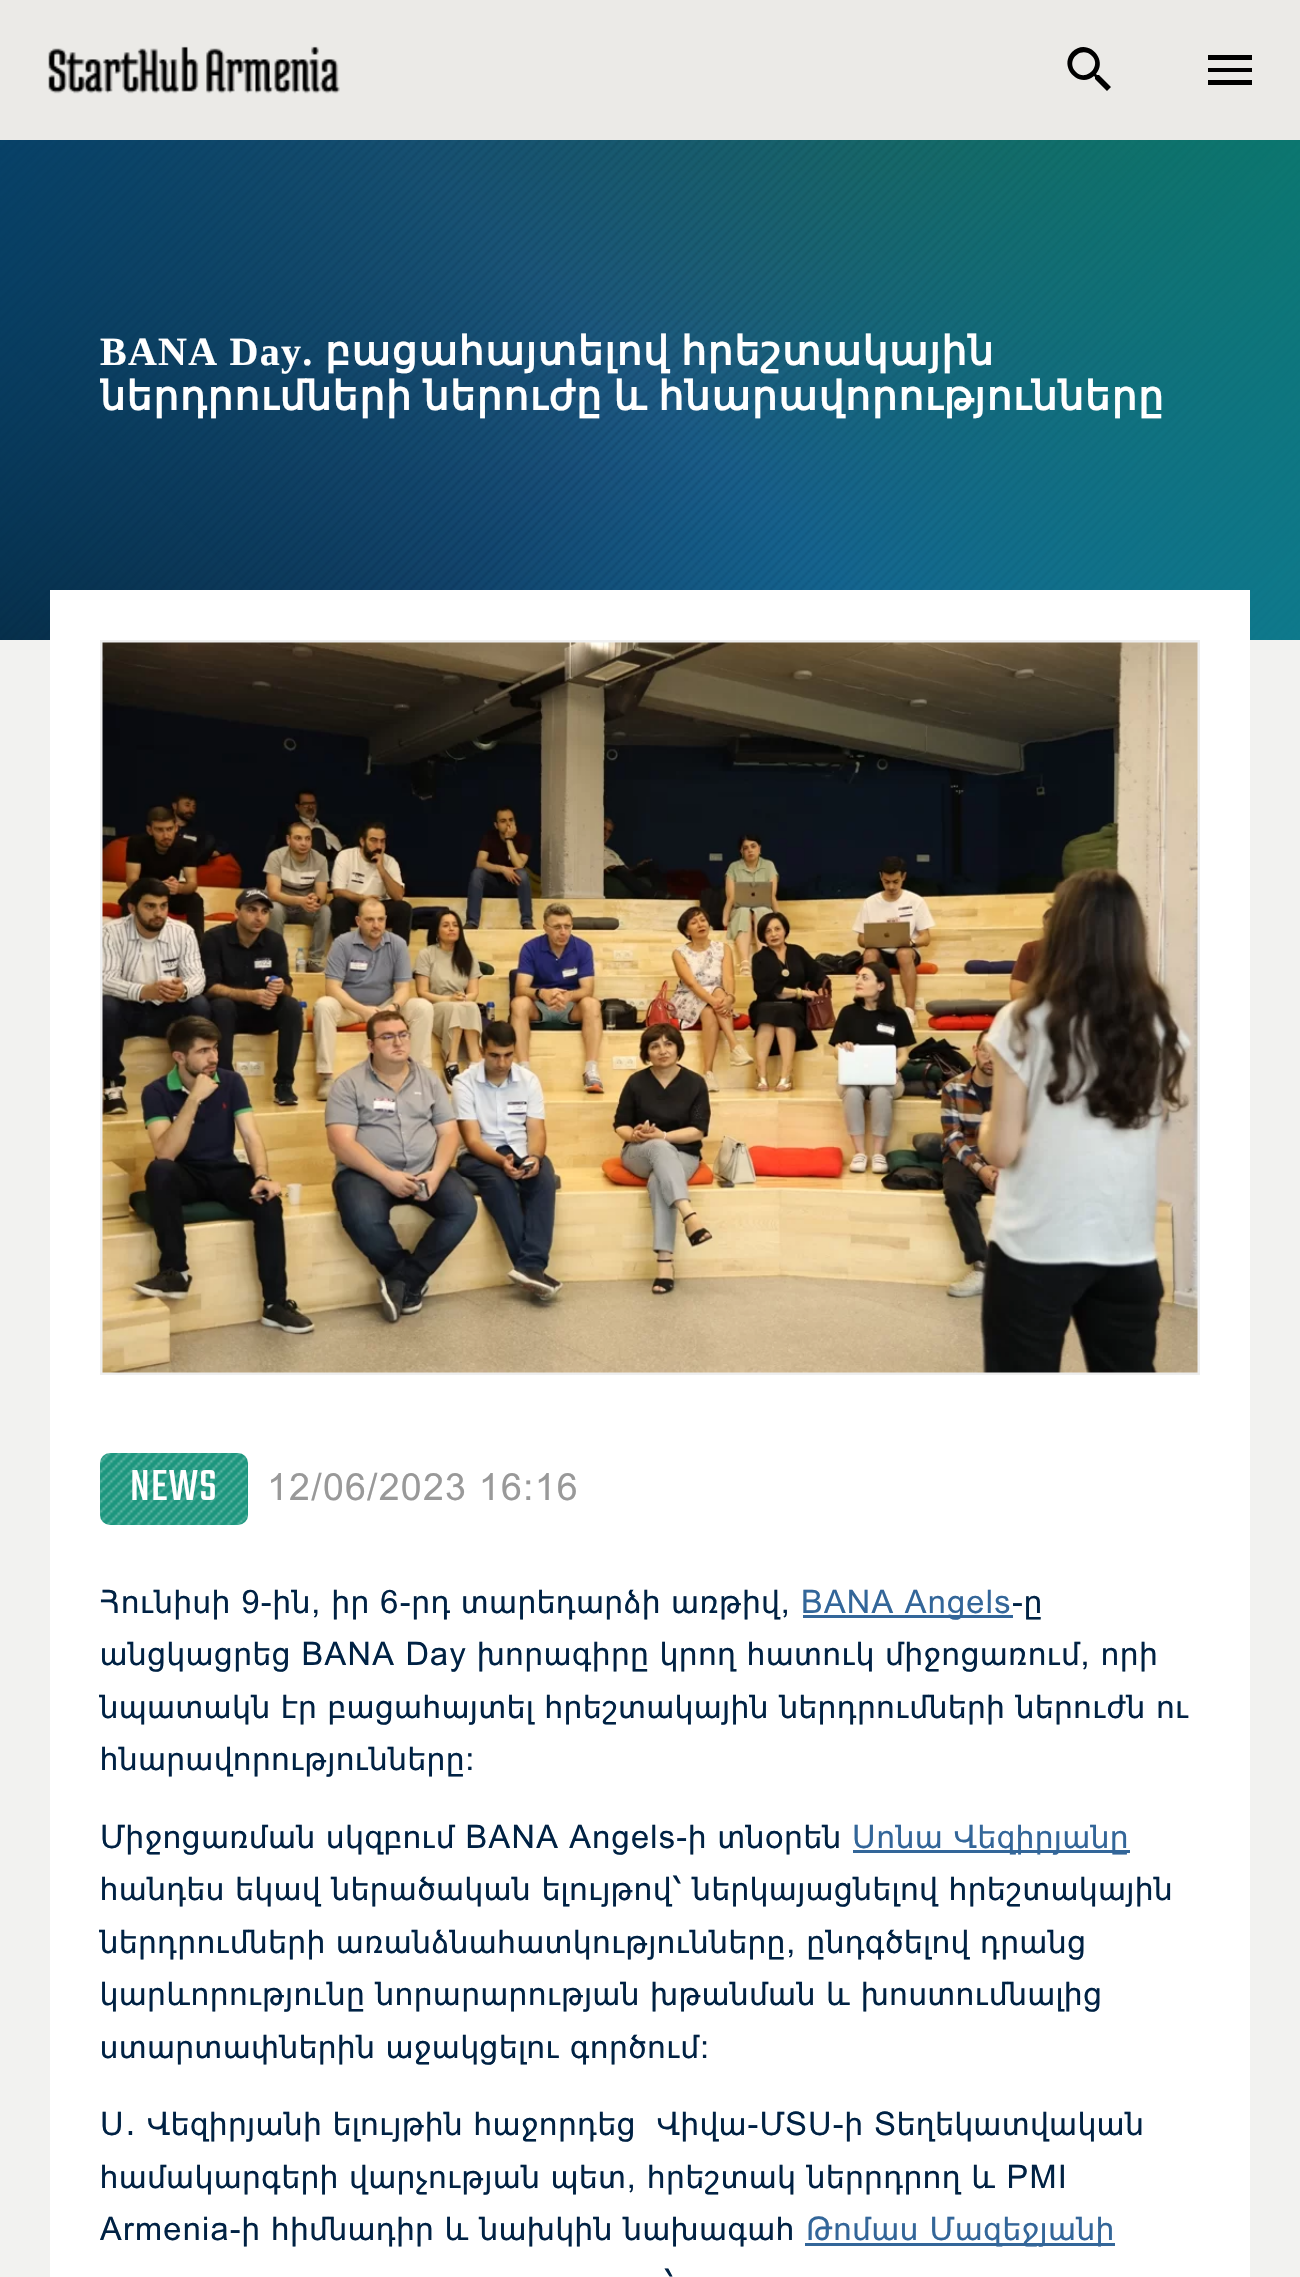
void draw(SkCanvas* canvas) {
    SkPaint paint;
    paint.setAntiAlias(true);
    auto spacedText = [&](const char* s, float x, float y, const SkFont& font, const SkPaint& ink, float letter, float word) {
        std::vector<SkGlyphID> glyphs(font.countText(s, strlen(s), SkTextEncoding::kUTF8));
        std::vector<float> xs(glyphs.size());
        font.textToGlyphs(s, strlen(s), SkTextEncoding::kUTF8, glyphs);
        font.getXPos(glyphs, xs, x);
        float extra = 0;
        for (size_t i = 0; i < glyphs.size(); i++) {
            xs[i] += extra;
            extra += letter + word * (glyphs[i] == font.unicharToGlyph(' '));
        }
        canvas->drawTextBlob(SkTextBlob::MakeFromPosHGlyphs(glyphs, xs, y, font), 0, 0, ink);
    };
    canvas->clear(0xFFF2F2F0);
    paint.setColor(0xFFEBEAE7);
    canvas->drawRect(SkRect::MakeXYWH(0, 0, 1300, 140), paint);
    canvas->drawImageRect(SkImages::DeferredFromEncodedData(SkData::MakeFromFileName("img1.png")), SkRect::MakeXYWH(48, 46, 292, 48), SkSamplingOptions());
    paint.setColor(0xFF000000);
    canvas->drawPath(SkPathBuilder().moveTo(1076, 72).cubicTo(1086, 82, 1102, 66, 1092, 56).cubicTo(1081, 45, 1065, 61, 1076, 72).close().moveTo(1099, 75).lineTo(1111, 87).lineTo(1107, 91).lineTo(1095, 79).lineTo(1095, 77).lineTo(1094, 76).cubicTo(1079, 89, 1058, 67, 1072, 52).cubicTo(1087, 37, 1109, 59, 1096, 74).lineTo(1097, 75).close().detach(), paint);
    canvas->drawPath(SkPathBuilder().moveTo(1208, 55).lineTo(1252, 55).lineTo(1252, 60).lineTo(1208, 60).close().moveTo(1208, 72).lineTo(1208, 68).lineTo(1252, 68).lineTo(1252, 72).close().moveTo(1208, 85).lineTo(1208, 80).lineTo(1252, 80).lineTo(1252, 85).close().detach(), paint);
    paint.setColor(0xFF357E8E);
    canvas->drawRect(SkRect::MakeXYWH(0, 140, 1300, 500), paint);
    canvas->drawImageRect(SkImages::DeferredFromEncodedData(SkData::MakeFromFileName("img2.png")), SkRect::MakeXYWH(0, 140, 1300, 500), SkSamplingOptions());
    {
        const SkColor colors[] = {0xBF1D4E6B, 0xBF0A4A94};
        const float stops[] = {0.05f, 1};
        const SkPoint ends[] = {{650, 140}, {650, 640}};
        paint.setShader(SkGradientShader::MakeLinear(ends, colors, stops, 2, SkTileMode::kClamp));
        paint.setAlpha(255);
    }
    canvas->drawRect(SkRect::MakeXYWH(0, 140, 1300, 500), paint);
    {
        const SkColor colors[] = {0xBF05171D, 0x0005171D, 0x00007958, 0xBF007958};
        const float stops[] = {0, 0.5f, 0.5f, 1};
        const SkPoint ends[] = {{200, 840}, {1100, -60}};
        paint.setShader(SkGradientShader::MakeLinear(ends, colors, stops, 4, SkTileMode::kClamp));
        paint.setAlpha(255);
    }
    canvas->drawRect(SkRect::MakeXYWH(0, 140, 1300, 500), paint);
    {
        const SkColor colors[] = {0xBF0E8190, 0x000E8190, 0x0000406D, 0xBF00406D};
        const float stops[] = {0, 0.5f, 0.5f, 1};
        const SkPoint ends[] = {{1100, 840}, {200, -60}};
        paint.setShader(SkGradientShader::MakeLinear(ends, colors, stops, 4, SkTileMode::kClamp));
        paint.setAlpha(255);
    }
    canvas->drawRect(SkRect::MakeXYWH(0, 140, 1300, 500), paint);
    SkFont font1(fontMgr->matchFamilyStyle("Liberation Serif", SkFontStyle::Bold()), 40);
    font1.setSubpixel(true);
    paint.setShader(nullptr);
    paint.setColor(0xFFFFFFFF);
    spacedText("BANA Day.", 100, 365, font1, paint, 1.25f, 0);
    SkFont font2(fontMgr->matchFamilyStyle("DejaVu Sans", SkFontStyle::Bold()), 40);
    font2.setSubpixel(true);
    spacedText("բացահայտելով", 325, 365, font2, paint, 1.25f, 0);
    spacedText("հրեշտակային", 681, 365, font2, paint, 1.25f, 0);
    canvas->save();
    canvas->clipRect(SkRect::MakeXYWH(100, 240, 1100, 270));
    spacedText("ներդրումների ներուժը և հնարավորությունները", 100, 410, font2, paint, 1.25f, -3);
    canvas->restore();
    canvas->drawRect(SkRect::MakeXYWH(50, 590, 1200, 1687), paint);
    paint.setStyle(SkPaint::kStroke_Style);
    paint.setStrokeWidth(3);
    paint.setColor(0xFFEEEEEE);
    canvas->drawRect(SkRect::MakeXYWH(101.5f, 641.5f, 1097, 732), paint);
    canvas->drawImageRect(SkImages::DeferredFromEncodedData(SkData::MakeFromFileName("img3.png")), SkRect::MakeXYWH(102, 642, 1096, 731), SkSamplingOptions());
    paint.setStyle(SkPaint::kFill_Style);
    paint.setColor(0xFF1C967E);
    canvas->drawRoundRect(SkRect::MakeXYWH(100, 1453, 148, 72), 10, 10, paint);
    canvas->drawImageRect(SkImages::DeferredFromEncodedData(SkData::MakeFromFileName("img4.png")), SkRect::MakeXYWH(100, 1453, 148, 72), SkSamplingOptions());
    SkFont font3(fontMgr->matchFamilyStyle("Teko", SkFontStyle(300, SkFontStyle::kNormal_Width, SkFontStyle::kUpright_Slant)), 48);
    font3.setSubpixel(true);
    paint.setColor(0xFFFFFFFF);
    spacedText("NEWS", 130, 1500, font3, paint, 1.25f, 0);
    SkFont font4(fontMgr->matchFamilyStyle("Arial", SkFontStyle::Normal()), 37.5f);
    font4.setSubpixel(true);
    paint.setColor(0xFF999999);
    spacedText("12/06/2023 16:16", 267, 1500, font4, paint, 1.25f, 0);
    SkFont font5(fontMgr->matchFamilyStyle("Arial", SkFontStyle::Normal()), 32.5f);
    font5.setSubpixel(true);
    paint.setColor(0xFF002244);
    spacedText("Հունիսի 9-ին, իր 6-րդ տարեդարձի առթիվ,", 100, 1613, font5, paint, 1.25f, 0);
    paint.setColor(0xFF336699);
    canvas->drawRect(SkRect::MakeXYWH(803, 1615, 210, 3), paint);
    spacedText("BANA Angels", 801, 1613, font5, paint, 1.25f, 0);
    paint.setColor(0xFF002244);
    spacedText("-ը", 1012, 1613, font5, paint, 1.25f, 0);
    spacedText("անցկացրեց BANA Day խորագիրը կրող հատուկ միջոցառում, որի", 100, 1665, font5, paint, 1.25f, 0);
    spacedText("նպատակն էր բացահայտել հրեշտակային ներդրումների ներուժն ու", 100, 1718, font5, paint, 1.25f, 0);
    spacedText("հնարավորությունները։", 100, 1770, font5, paint, 1.25f, 0);
    spacedText("Միջոցառման սկզբում BANA Angels-ի տնօրեն", 100, 1848, font5, paint, 1.25f, 0);
    paint.setColor(0xFF336699);
    canvas->drawRect(SkRect::MakeXYWH(853, 1850, 277, 3), paint);
    spacedText("Սոնա Վեզիրյանը", 852, 1848, font5, paint, 1.25f, 0);
    paint.setColor(0xFF002244);
    spacedText("հանդես եկավ ներածական ելույթով՝ ներկայացնելով հրեշտակային", 100, 1900, font5, paint, 1.25f, 0);
    spacedText("ներդրումների առանձնահատկությունները, ընդգծելով դրանց", 100, 1953, font5, paint, 1.25f, 0);
    spacedText("կարևորությունը նորարարության խթանման և խոստումնալից", 100, 2005, font5, paint, 1.25f, 0);
    spacedText("ստարտափներին աջակցելու գործում:", 100, 2058, font5, paint, 1.25f, 0);
    spacedText("Ս", 100, 2135, font5, paint, 1.25f, 0);
    SkFont font6(fontMgr->matchFamilyStyle("DejaVu Sans", SkFontStyle::Normal()), 32.5f);
    font6.setSubpixel(true);
    spacedText("․", 125, 2135, font6, paint, 1.25f, 0);
    spacedText("Վեզիրյանի ելույթին հաջորդեց  Վիվա-ՄՏՍ-ի Տեղեկատվական", 147, 2135, font5, paint, 1.25f, 0);
    spacedText("համակարգերի վարչության պետ, հրեշտակ ներրդրող և PMI", 100, 2188, font5, paint, 1.25f, 0);
    spacedText("Armenia-ի հիմնադիր և նախկին նախագահ", 100, 2240, font5, paint, 1.25f, 0);
    paint.setColor(0xFF336699);
    canvas->drawRect(SkRect::MakeXYWH(805, 2243, 310, 3), paint);
    spacedText("Թոմաս Մազեջյանի", 806, 2240, font5, paint, 1.25f, 0);
    paint.setColor(0xFF002244);
    spacedText("՝", 664, 2293, font5, paint, 1.25f, 0);
}
